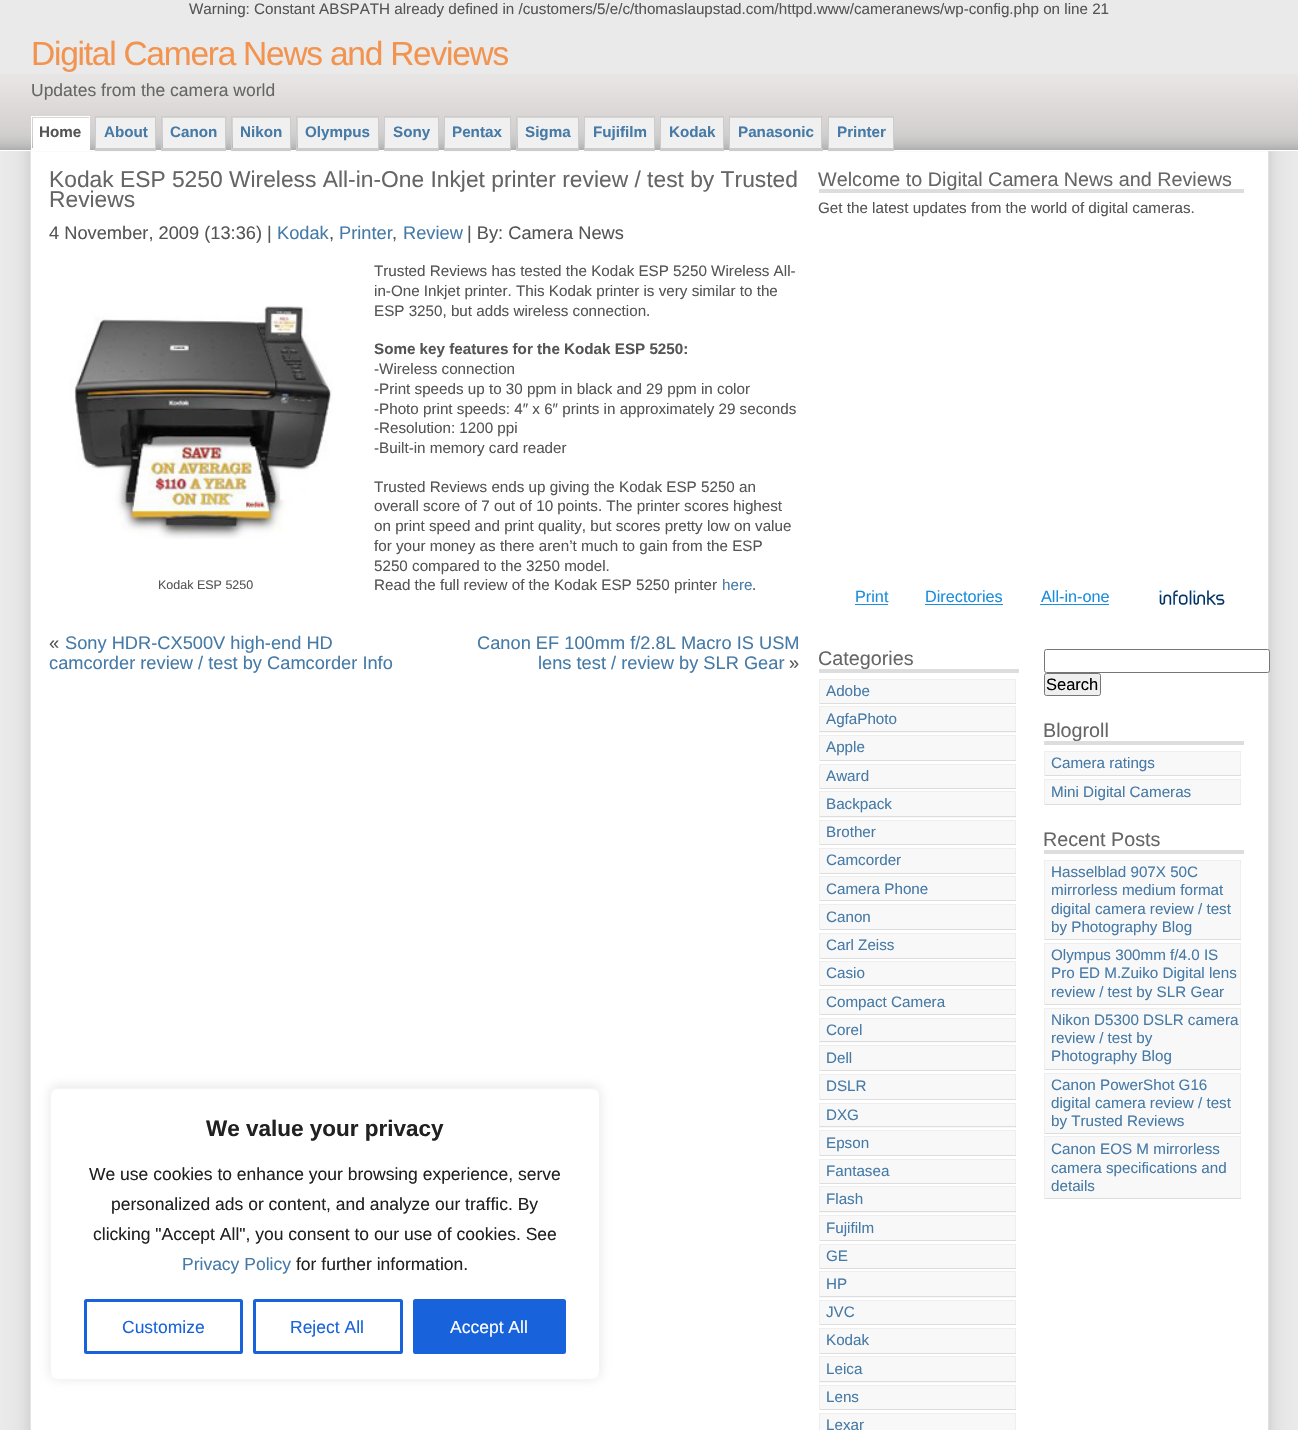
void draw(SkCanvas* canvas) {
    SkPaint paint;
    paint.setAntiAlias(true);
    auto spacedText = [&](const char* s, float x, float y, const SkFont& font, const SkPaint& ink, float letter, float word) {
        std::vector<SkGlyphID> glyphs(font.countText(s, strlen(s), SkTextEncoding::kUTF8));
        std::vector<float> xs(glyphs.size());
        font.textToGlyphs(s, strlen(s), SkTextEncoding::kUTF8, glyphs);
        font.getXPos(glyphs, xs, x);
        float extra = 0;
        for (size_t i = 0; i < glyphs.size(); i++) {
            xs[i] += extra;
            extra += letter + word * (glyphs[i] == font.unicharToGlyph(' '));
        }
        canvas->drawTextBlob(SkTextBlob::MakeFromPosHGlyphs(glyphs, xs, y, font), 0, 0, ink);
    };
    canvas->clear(0xFFEAEAEA);
    SkFont font1(fontMgr->matchFamilyStyle("Liberation Sans", SkFontStyle::Normal()), 15.2f);
    font1.setSubpixel(true);
    paint.setColor(0xFF555555);
    canvas->drawString("Warning: Constant ABSPATH already defined in /customers/5/e/c/thomaslaupstad.com/httpd.www/cameranews/wp-config.php on line 21", 189, 14, font1, paint);
    canvas->drawImageRect(SkImages::DeferredFromEncodedData(SkData::MakeFromFileName("img1.png")), SkRect::MakeXYWH(0, 74, 1298, 76), SkSamplingOptions());
    paint.setColor(0xFFFFFFFF);
    canvas->drawRect(SkRect::MakeXYWH(0, 150, 1298, 1), paint);
    SkFont font2(fontMgr->matchFamilyStyle("Liberation Sans", SkFontStyle::Normal()), 33.5f);
    font2.setSubpixel(true);
    paint.setColor(0xFFF29450);
    spacedText("Digital Camera News and Reviews", 31, 65, font2, paint, -1.25f, 0);
    SkFont font3(fontMgr->matchFamilyStyle("Liberation Sans", SkFontStyle::Normal()), 17.5f);
    font3.setSubpixel(true);
    paint.setColor(0xFF666666);
    canvas->drawString("Updates from the camera world", 31, 96, font3, paint);
    paint.setColor(0xFFFFFFFF);
    canvas->drawRect(SkRect::MakeXYWH(33, 118, 56, 30), paint);
    canvas->drawRect(SkRect::MakeXYWH(31, 116, 59, 1), paint);
    canvas->drawRect(SkRect::MakeXYWH(89, 116, 1, 34), paint);
    canvas->drawRect(SkRect::MakeXYWH(31, 148, 59, 2), paint);
    canvas->drawRect(SkRect::MakeXYWH(31, 116, 1, 34), paint);
    SkFont font4(fontMgr->matchFamilyStyle("Liberation Sans", SkFontStyle::Bold()), 15.2f);
    font4.setSubpixel(true);
    paint.setColor(0xFF555555);
    canvas->drawString("Home", 39, 137, font4, paint);
    paint.setColor(0xFFF0F0F0);
    canvas->drawRect(SkRect::MakeXYWH(96, 118, 59, 30), paint);
    paint.setColor(0xFFCCCCCC);
    canvas->drawRect(SkRect::MakeXYWH(95, 116, 61, 1), paint);
    canvas->drawRect(SkRect::MakeXYWH(155, 116, 1, 34), paint);
    canvas->drawRect(SkRect::MakeXYWH(95, 148, 61, 3), paint);
    canvas->drawRect(SkRect::MakeXYWH(95, 116, 1, 34), paint);
    paint.setColor(0xFF467AA7);
    canvas->drawString("About", 104, 137, font4, paint);
    paint.setColor(0xFFF0F0F0);
    canvas->drawRect(SkRect::MakeXYWH(163, 118, 62, 30), paint);
    paint.setColor(0xFFCCCCCC);
    canvas->drawRect(SkRect::MakeXYWH(161, 116, 65, 1), paint);
    canvas->drawRect(SkRect::MakeXYWH(225, 116, 1, 34), paint);
    canvas->drawRect(SkRect::MakeXYWH(161, 148, 65, 3), paint);
    canvas->drawRect(SkRect::MakeXYWH(161, 116, 1, 34), paint);
    paint.setColor(0xFF467AA7);
    canvas->drawString("Canon", 170, 137, font4, paint);
    paint.setColor(0xFFF0F0F0);
    canvas->drawRect(SkRect::MakeXYWH(233, 118, 57, 30), paint);
    paint.setColor(0xFFCCCCCC);
    canvas->drawRect(SkRect::MakeXYWH(231, 116, 60, 1), paint);
    canvas->drawRect(SkRect::MakeXYWH(290, 116, 1, 34), paint);
    canvas->drawRect(SkRect::MakeXYWH(231, 148, 60, 3), paint);
    canvas->drawRect(SkRect::MakeXYWH(231, 116, 1, 34), paint);
    paint.setColor(0xFF467AA7);
    canvas->drawString("Nikon", 240, 137, font4, paint);
    paint.setColor(0xFFF0F0F0);
    canvas->drawRect(SkRect::MakeXYWH(298, 118, 80, 30), paint);
    paint.setColor(0xFFCCCCCC);
    canvas->drawRect(SkRect::MakeXYWH(296, 116, 83, 1), paint);
    canvas->drawRect(SkRect::MakeXYWH(378, 116, 1, 34), paint);
    canvas->drawRect(SkRect::MakeXYWH(296, 148, 83, 3), paint);
    canvas->drawRect(SkRect::MakeXYWH(296, 116, 1, 34), paint);
    paint.setColor(0xFF467AA7);
    canvas->drawString("Olympus", 305, 137, font4, paint);
    paint.setColor(0xFFF0F0F0);
    canvas->drawRect(SkRect::MakeXYWH(385, 118, 53, 30), paint);
    paint.setColor(0xFFCCCCCC);
    canvas->drawRect(SkRect::MakeXYWH(384, 116, 55, 1), paint);
    canvas->drawRect(SkRect::MakeXYWH(438, 116, 1, 34), paint);
    canvas->drawRect(SkRect::MakeXYWH(384, 148, 55, 3), paint);
    canvas->drawRect(SkRect::MakeXYWH(384, 116, 1, 34), paint);
    paint.setColor(0xFF467AA7);
    canvas->drawString("Sony", 393, 137, font4, paint);
    paint.setColor(0xFFF0F0F0);
    canvas->drawRect(SkRect::MakeXYWH(445, 118, 65, 30), paint);
    paint.setColor(0xFFCCCCCC);
    canvas->drawRect(SkRect::MakeXYWH(444, 116, 67, 1), paint);
    canvas->drawRect(SkRect::MakeXYWH(510, 116, 1, 34), paint);
    canvas->drawRect(SkRect::MakeXYWH(444, 148, 67, 3), paint);
    canvas->drawRect(SkRect::MakeXYWH(444, 116, 1, 34), paint);
    paint.setColor(0xFF467AA7);
    canvas->drawString("Pentax", 452, 137, font4, paint);
    paint.setColor(0xFFF0F0F0);
    canvas->drawRect(SkRect::MakeXYWH(518, 118, 60, 30), paint);
    paint.setColor(0xFFCCCCCC);
    canvas->drawRect(SkRect::MakeXYWH(516, 116, 63, 1), paint);
    canvas->drawRect(SkRect::MakeXYWH(578, 116, 1, 34), paint);
    canvas->drawRect(SkRect::MakeXYWH(516, 148, 63, 3), paint);
    canvas->drawRect(SkRect::MakeXYWH(516, 116, 1, 34), paint);
    paint.setColor(0xFF467AA7);
    canvas->drawString("Sigma", 525, 137, font4, paint);
    paint.setColor(0xFFF0F0F0);
    canvas->drawRect(SkRect::MakeXYWH(585, 118, 69, 30), paint);
    paint.setColor(0xFFCCCCCC);
    canvas->drawRect(SkRect::MakeXYWH(584, 116, 71, 1), paint);
    canvas->drawRect(SkRect::MakeXYWH(654, 116, 1, 34), paint);
    canvas->drawRect(SkRect::MakeXYWH(584, 148, 71, 3), paint);
    canvas->drawRect(SkRect::MakeXYWH(584, 116, 1, 34), paint);
    paint.setColor(0xFF467AA7);
    canvas->drawString("Fujifilm", 593, 137, font4, paint);
    paint.setColor(0xFFF0F0F0);
    canvas->drawRect(SkRect::MakeXYWH(661, 118, 62, 30), paint);
    paint.setColor(0xFFCCCCCC);
    canvas->drawRect(SkRect::MakeXYWH(660, 116, 64, 1), paint);
    canvas->drawRect(SkRect::MakeXYWH(723, 116, 1, 34), paint);
    canvas->drawRect(SkRect::MakeXYWH(660, 148, 64, 3), paint);
    canvas->drawRect(SkRect::MakeXYWH(660, 116, 1, 34), paint);
    paint.setColor(0xFF467AA7);
    canvas->drawString("Kodak", 669, 137, font4, paint);
    paint.setColor(0xFFF0F0F0);
    canvas->drawRect(SkRect::MakeXYWH(730, 118, 91, 30), paint);
    paint.setColor(0xFFCCCCCC);
    canvas->drawRect(SkRect::MakeXYWH(729, 116, 94, 1), paint);
    canvas->drawRect(SkRect::MakeXYWH(821, 116, 1, 34), paint);
    canvas->drawRect(SkRect::MakeXYWH(729, 148, 94, 3), paint);
    canvas->drawRect(SkRect::MakeXYWH(729, 116, 1, 34), paint);
    paint.setColor(0xFF467AA7);
    canvas->drawString("Panasonic", 738, 137, font4, paint);
    paint.setColor(0xFFF0F0F0);
    canvas->drawRect(SkRect::MakeXYWH(829, 118, 64, 30), paint);
    paint.setColor(0xFFCCCCCC);
    canvas->drawRect(SkRect::MakeXYWH(828, 116, 66, 1), paint);
    canvas->drawRect(SkRect::MakeXYWH(893, 116, 1, 34), paint);
    canvas->drawRect(SkRect::MakeXYWH(828, 148, 66, 3), paint);
    canvas->drawRect(SkRect::MakeXYWH(828, 116, 1, 34), paint);
    paint.setColor(0xFF467AA7);
    canvas->drawString("Printer", 837, 137, font4, paint);
    canvas->drawImageRect(SkImages::DeferredFromEncodedData(SkData::MakeFromFileName("img2.png")), SkRect::MakeXYWH(0, 151, 1298, 1279), SkSamplingOptions());
    SkFont font5(fontMgr->matchFamilyStyle("Liberation Sans", SkFontStyle::Normal()), 22.8f);
    font5.setSubpixel(true);
    paint.setColor(0xFF666666);
    canvas->drawString("Kodak ESP 5250 Wireless All-in-One Inkjet printer review / test by Trusted", 49, 187, font5, paint);
    canvas->drawString("Reviews", 49, 207, font5, paint);
    SkFont font6(fontMgr->matchFamilyStyle("Liberation Sans", SkFontStyle::Normal()), 18.25f);
    font6.setSubpixel(true);
    paint.setColor(0xFF555555);
    canvas->drawString("4 November, 2009 (13:36) |", 49, 239, font6, paint);
    paint.setColor(0xFF467AA7);
    canvas->drawString("Kodak", 277, 239, font6, paint);
    paint.setColor(0xFF555555);
    canvas->drawString(",", 329, 239, font6, paint);
    paint.setColor(0xFF467AA7);
    canvas->drawString("Printer", 339, 239, font6, paint);
    paint.setColor(0xFF555555);
    canvas->drawString(",", 392, 239, font6, paint);
    paint.setColor(0xFF467AA7);
    canvas->drawString("Review", 403, 239, font6, paint);
    paint.setColor(0xFF555555);
    canvas->drawString("| By: Camera News", 467, 239, font6, paint);
    canvas->drawString("Trusted Reviews has tested the Kodak ESP 5250 Wireless All-", 374, 276, font1, paint);
    canvas->drawString("in-One Inkjet printer. This Kodak printer is very similar to the", 374, 296, font1, paint);
    canvas->drawString("ESP 3250, but adds wireless connection.", 374, 316, font1, paint);
    canvas->drawString("Some key features for the Kodak ESP 5250:", 374, 354, font4, paint);
    canvas->drawString("-Wireless connection", 374, 374, font1, paint);
    canvas->drawString("-Print speeds up to 30 ppm in black and 29 ppm in color", 374, 394, font1, paint);
    canvas->drawString("-Photo print speeds: 4″ x 6″ prints in approximately 29 seconds", 374, 414, font1, paint);
    canvas->drawString("-Resolution: 1200 ppi", 374, 433, font1, paint);
    canvas->drawString("-Built-in memory card reader", 374, 453, font1, paint);
    canvas->drawImageRect(SkImages::DeferredFromEncodedData(SkData::MakeFromFileName("img3.png")), SkRect::MakeXYWH(70, 306, 263, 233), SkSamplingOptions());
    SkFont font7(fontMgr->matchFamilyStyle("Liberation Sans", SkFontStyle::Normal()), 12.5f);
    font7.setSubpixel(true);
    canvas->drawString("Kodak ESP 5250", 158, 589, font7, paint);
    canvas->drawString("Trusted Reviews ends up giving the Kodak ESP 5250 an", 374, 492, font1, paint);
    canvas->drawString("overall score of 7 out of 10 points. The printer scores highest", 374, 511, font1, paint);
    canvas->drawString("on print speed and print quality, but scores pretty low on value", 374, 531, font1, paint);
    canvas->drawString("for your money as there aren’t much to gain from the ESP", 374, 551, font1, paint);
    canvas->drawString("5250 compared to the 3250 model.", 374, 571, font1, paint);
    canvas->drawString("Read the full review of the Kodak ESP 5250 printer", 374, 590, font1, paint);
    paint.setColor(0xFF467AA7);
    canvas->drawString("here", 722, 590, font1, paint);
    paint.setColor(0xFF555555);
    canvas->drawString(".", 752, 590, font1, paint);
    canvas->drawString("«", 49, 649, font6, paint);
    paint.setColor(0xFF467AA7);
    canvas->drawString("Sony HDR-CX500V high-end HD", 65, 649, font6, paint);
    canvas->drawString("camcorder review / test by Camcorder Info", 49, 669, font6, paint);
    canvas->drawString("Canon EF 100mm f/2.8L Macro IS USM", 477, 649, font6, paint);
    canvas->drawString("lens test / review by SLR Gear", 538, 669, font6, paint);
    paint.setColor(0xFF555555);
    canvas->drawString("»", 789, 669, font6, paint);
    paint.setColor(0xFFDDDDDD);
    canvas->drawRect(SkRect::MakeXYWH(819, 189, 425, 4), paint);
    SkFont font8(fontMgr->matchFamilyStyle("Liberation Sans", SkFontStyle::Normal()), 19.75f);
    font8.setSubpixel(true);
    paint.setColor(0xFF666666);
    canvas->drawString("Welcome to Digital Camera News and Reviews", 818, 186, font8, paint);
    paint.setColor(0xFF555555);
    canvas->drawString("Get the latest updates from the world of digital cameras.", 818, 213, font1, paint);
    SkFont font9(fontMgr->matchFamilyStyle("Liberation Sans", SkFontStyle::Normal()), 16.25f);
    font9.setSubpixel(true);
    paint.setColor(0xFF1B8EDE);
    canvas->drawString("Print", 855, 602, font9, paint);
    canvas->drawRect(SkRect::MakeXYWH(855, 604, 33, 1), paint);
    canvas->drawString("Directories", 925, 602, font9, paint);
    canvas->drawRect(SkRect::MakeXYWH(925, 604, 78, 1), paint);
    canvas->drawString("All-in-one", 1041, 602, font9, paint);
    canvas->drawRect(SkRect::MakeXYWH(1040, 604, 69, 1), paint);
    canvas->drawImageRect(SkImages::DeferredFromEncodedData(SkData::MakeFromFileName("img4.png")), SkRect::MakeXYWH(1159, 590, 66, 15), SkSamplingOptions());
    paint.setColor(0xFFDDDDDD);
    canvas->drawRect(SkRect::MakeXYWH(819, 669, 200, 4), paint);
    paint.setColor(0xFF666666);
    canvas->drawString("Categories", 818, 665, font8, paint);
    paint.setColor(0xFFF8F8F8);
    canvas->drawRect(SkRect::MakeXYWH(820, 680, 195, 23), paint);
    paint.setColor(0xFFEEEEEE);
    canvas->drawRect(SkRect::MakeXYWH(819, 679, 197, 1), paint);
    canvas->drawRect(SkRect::MakeXYWH(1015, 679, 1, 25), paint);
    paint.setColor(0xFFDDDDDD);
    canvas->drawRect(SkRect::MakeXYWH(819, 703, 197, 1), paint);
    paint.setColor(0xFFEEEEEE);
    canvas->drawRect(SkRect::MakeXYWH(819, 679, 1, 25), paint);
    paint.setColor(0xFF467AA7);
    canvas->drawString("Adobe", 826, 696, font1, paint);
    paint.setColor(0xFFF8F8F8);
    canvas->drawRect(SkRect::MakeXYWH(820, 707, 195, 26), paint);
    paint.setColor(0xFFEEEEEE);
    canvas->drawRect(SkRect::MakeXYWH(819, 706, 197, 1), paint);
    canvas->drawRect(SkRect::MakeXYWH(1015, 706, 1, 27), paint);
    paint.setColor(0xFFDDDDDD);
    canvas->drawRect(SkRect::MakeXYWH(819, 731, 197, 1), paint);
    paint.setColor(0xFFEEEEEE);
    canvas->drawRect(SkRect::MakeXYWH(819, 706, 1, 27), paint);
    paint.setColor(0xFF467AA7);
    canvas->drawString("AgfaPhoto", 826, 724, font1, paint);
    paint.setColor(0xFFF8F8F8);
    canvas->drawRect(SkRect::MakeXYWH(820, 736, 195, 24), paint);
    paint.setColor(0xFFEEEEEE);
    canvas->drawRect(SkRect::MakeXYWH(819, 735, 197, 1), paint);
    canvas->drawRect(SkRect::MakeXYWH(1015, 735, 1, 26), paint);
    paint.setColor(0xFFDDDDDD);
    canvas->drawRect(SkRect::MakeXYWH(819, 760, 197, 1), paint);
    paint.setColor(0xFFEEEEEE);
    canvas->drawRect(SkRect::MakeXYWH(819, 735, 1, 26), paint);
    paint.setColor(0xFF467AA7);
    canvas->drawString("Apple", 826, 752, font1, paint);
    paint.setColor(0xFFF8F8F8);
    canvas->drawRect(SkRect::MakeXYWH(820, 765, 195, 23), paint);
    paint.setColor(0xFFEEEEEE);
    canvas->drawRect(SkRect::MakeXYWH(819, 764, 197, 1), paint);
    canvas->drawRect(SkRect::MakeXYWH(1015, 764, 1, 25), paint);
    paint.setColor(0xFFDDDDDD);
    canvas->drawRect(SkRect::MakeXYWH(819, 788, 197, 1), paint);
    paint.setColor(0xFFEEEEEE);
    canvas->drawRect(SkRect::MakeXYWH(819, 764, 1, 25), paint);
    paint.setColor(0xFF467AA7);
    canvas->drawString("Award", 826, 781, font1, paint);
    paint.setColor(0xFFF8F8F8);
    canvas->drawRect(SkRect::MakeXYWH(820, 792, 195, 26), paint);
    paint.setColor(0xFFEEEEEE);
    canvas->drawRect(SkRect::MakeXYWH(819, 791, 197, 1), paint);
    canvas->drawRect(SkRect::MakeXYWH(1015, 791, 1, 27), paint);
    paint.setColor(0xFFDDDDDD);
    canvas->drawRect(SkRect::MakeXYWH(819, 816, 197, 1), paint);
    paint.setColor(0xFFEEEEEE);
    canvas->drawRect(SkRect::MakeXYWH(819, 791, 1, 27), paint);
    paint.setColor(0xFF467AA7);
    canvas->drawString("Backpack", 826, 809, font1, paint);
    paint.setColor(0xFFF8F8F8);
    canvas->drawRect(SkRect::MakeXYWH(820, 821, 195, 23), paint);
    paint.setColor(0xFFEEEEEE);
    canvas->drawRect(SkRect::MakeXYWH(819, 820, 197, 1), paint);
    canvas->drawRect(SkRect::MakeXYWH(1015, 820, 1, 25), paint);
    paint.setColor(0xFFDDDDDD);
    canvas->drawRect(SkRect::MakeXYWH(819, 844, 197, 1), paint);
    paint.setColor(0xFFEEEEEE);
    canvas->drawRect(SkRect::MakeXYWH(819, 820, 1, 25), paint);
    paint.setColor(0xFF467AA7);
    canvas->drawString("Brother", 826, 837, font1, paint);
    paint.setColor(0xFFF8F8F8);
    canvas->drawRect(SkRect::MakeXYWH(820, 849, 195, 24), paint);
    paint.setColor(0xFFEEEEEE);
    canvas->drawRect(SkRect::MakeXYWH(819, 848, 197, 1), paint);
    canvas->drawRect(SkRect::MakeXYWH(1015, 848, 1, 26), paint);
    paint.setColor(0xFFDDDDDD);
    canvas->drawRect(SkRect::MakeXYWH(819, 873, 197, 1), paint);
    paint.setColor(0xFFEEEEEE);
    canvas->drawRect(SkRect::MakeXYWH(819, 848, 1, 26), paint);
    paint.setColor(0xFF467AA7);
    canvas->drawString("Camcorder", 826, 865, font1, paint);
    paint.setColor(0xFFF8F8F8);
    canvas->drawRect(SkRect::MakeXYWH(820, 877, 195, 23), paint);
    paint.setColor(0xFFEEEEEE);
    canvas->drawRect(SkRect::MakeXYWH(819, 876, 197, 1), paint);
    canvas->drawRect(SkRect::MakeXYWH(1015, 876, 1, 25), paint);
    paint.setColor(0xFFDDDDDD);
    canvas->drawRect(SkRect::MakeXYWH(819, 900, 197, 1), paint);
    paint.setColor(0xFFEEEEEE);
    canvas->drawRect(SkRect::MakeXYWH(819, 876, 1, 25), paint);
    paint.setColor(0xFF467AA7);
    canvas->drawString("Camera Phone", 826, 894, font1, paint);
    paint.setColor(0xFFF8F8F8);
    canvas->drawRect(SkRect::MakeXYWH(820, 905, 195, 24), paint);
    paint.setColor(0xFFEEEEEE);
    canvas->drawRect(SkRect::MakeXYWH(819, 904, 197, 1), paint);
    canvas->drawRect(SkRect::MakeXYWH(1015, 904, 1, 26), paint);
    paint.setColor(0xFFDDDDDD);
    canvas->drawRect(SkRect::MakeXYWH(819, 929, 197, 1), paint);
    paint.setColor(0xFFEEEEEE);
    canvas->drawRect(SkRect::MakeXYWH(819, 904, 1, 26), paint);
    paint.setColor(0xFF467AA7);
    canvas->drawString("Canon", 826, 922, font1, paint);
    paint.setColor(0xFFF8F8F8);
    canvas->drawRect(SkRect::MakeXYWH(820, 934, 195, 24), paint);
    paint.setColor(0xFFEEEEEE);
    canvas->drawRect(SkRect::MakeXYWH(819, 933, 197, 1), paint);
    canvas->drawRect(SkRect::MakeXYWH(1015, 933, 1, 26), paint);
    paint.setColor(0xFFDDDDDD);
    canvas->drawRect(SkRect::MakeXYWH(819, 958, 197, 1), paint);
    paint.setColor(0xFFEEEEEE);
    canvas->drawRect(SkRect::MakeXYWH(819, 933, 1, 26), paint);
    paint.setColor(0xFF467AA7);
    canvas->drawString("Carl Zeiss", 826, 950, font1, paint);
    paint.setColor(0xFFF8F8F8);
    canvas->drawRect(SkRect::MakeXYWH(820, 962, 195, 23), paint);
    paint.setColor(0xFFEEEEEE);
    canvas->drawRect(SkRect::MakeXYWH(819, 961, 197, 1), paint);
    canvas->drawRect(SkRect::MakeXYWH(1015, 961, 1, 25), paint);
    paint.setColor(0xFFDDDDDD);
    canvas->drawRect(SkRect::MakeXYWH(819, 985, 197, 1), paint);
    paint.setColor(0xFFEEEEEE);
    canvas->drawRect(SkRect::MakeXYWH(819, 961, 1, 25), paint);
    paint.setColor(0xFF467AA7);
    canvas->drawString("Casio", 826, 978, font1, paint);
    paint.setColor(0xFFF8F8F8);
    canvas->drawRect(SkRect::MakeXYWH(820, 990, 195, 24), paint);
    paint.setColor(0xFFEEEEEE);
    canvas->drawRect(SkRect::MakeXYWH(819, 989, 197, 1), paint);
    canvas->drawRect(SkRect::MakeXYWH(1015, 989, 1, 26), paint);
    paint.setColor(0xFFDDDDDD);
    canvas->drawRect(SkRect::MakeXYWH(819, 1014, 197, 1), paint);
    paint.setColor(0xFFEEEEEE);
    canvas->drawRect(SkRect::MakeXYWH(819, 989, 1, 26), paint);
    paint.setColor(0xFF467AA7);
    canvas->drawString("Compact Camera", 826, 1007, font1, paint);
    paint.setColor(0xFFF8F8F8);
    canvas->drawRect(SkRect::MakeXYWH(820, 1019, 195, 24), paint);
    paint.setColor(0xFFEEEEEE);
    canvas->drawRect(SkRect::MakeXYWH(819, 1018, 197, 1), paint);
    canvas->drawRect(SkRect::MakeXYWH(1015, 1018, 1, 25), paint);
    paint.setColor(0xFFDDDDDD);
    canvas->drawRect(SkRect::MakeXYWH(819, 1041, 197, 1), paint);
    paint.setColor(0xFFEEEEEE);
    canvas->drawRect(SkRect::MakeXYWH(819, 1018, 1, 25), paint);
    paint.setColor(0xFF467AA7);
    canvas->drawString("Corel", 826, 1035, font1, paint);
    paint.setColor(0xFFF8F8F8);
    canvas->drawRect(SkRect::MakeXYWH(820, 1046, 195, 24), paint);
    paint.setColor(0xFFEEEEEE);
    canvas->drawRect(SkRect::MakeXYWH(819, 1045, 197, 1), paint);
    canvas->drawRect(SkRect::MakeXYWH(1015, 1045, 1, 26), paint);
    paint.setColor(0xFFDDDDDD);
    canvas->drawRect(SkRect::MakeXYWH(819, 1070, 197, 1), paint);
    paint.setColor(0xFFEEEEEE);
    canvas->drawRect(SkRect::MakeXYWH(819, 1045, 1, 26), paint);
    paint.setColor(0xFF467AA7);
    canvas->drawString("Dell", 826, 1063, font1, paint);
    paint.setColor(0xFFF8F8F8);
    canvas->drawRect(SkRect::MakeXYWH(820, 1075, 195, 24), paint);
    paint.setColor(0xFFEEEEEE);
    canvas->drawRect(SkRect::MakeXYWH(819, 1074, 197, 1), paint);
    canvas->drawRect(SkRect::MakeXYWH(1015, 1074, 1, 26), paint);
    paint.setColor(0xFFDDDDDD);
    canvas->drawRect(SkRect::MakeXYWH(819, 1099, 197, 1), paint);
    paint.setColor(0xFFEEEEEE);
    canvas->drawRect(SkRect::MakeXYWH(819, 1074, 1, 26), paint);
    paint.setColor(0xFF467AA7);
    canvas->drawString("DSLR", 826, 1091, font1, paint);
    paint.setColor(0xFFF8F8F8);
    canvas->drawRect(SkRect::MakeXYWH(820, 1104, 195, 24), paint);
    paint.setColor(0xFFEEEEEE);
    canvas->drawRect(SkRect::MakeXYWH(819, 1103, 197, 1), paint);
    canvas->drawRect(SkRect::MakeXYWH(1015, 1103, 1, 25), paint);
    paint.setColor(0xFFDDDDDD);
    canvas->drawRect(SkRect::MakeXYWH(819, 1126, 197, 1), paint);
    paint.setColor(0xFFEEEEEE);
    canvas->drawRect(SkRect::MakeXYWH(819, 1103, 1, 25), paint);
    paint.setColor(0xFF467AA7);
    canvas->drawString("DXG", 826, 1120, font1, paint);
    paint.setColor(0xFFF8F8F8);
    canvas->drawRect(SkRect::MakeXYWH(820, 1131, 195, 24), paint);
    paint.setColor(0xFFEEEEEE);
    canvas->drawRect(SkRect::MakeXYWH(819, 1130, 197, 1), paint);
    canvas->drawRect(SkRect::MakeXYWH(1015, 1130, 1, 26), paint);
    paint.setColor(0xFFDDDDDD);
    canvas->drawRect(SkRect::MakeXYWH(819, 1155, 197, 1), paint);
    paint.setColor(0xFFEEEEEE);
    canvas->drawRect(SkRect::MakeXYWH(819, 1130, 1, 26), paint);
    paint.setColor(0xFF467AA7);
    canvas->drawString("Epson", 826, 1148, font1, paint);
    paint.setColor(0xFFF8F8F8);
    canvas->drawRect(SkRect::MakeXYWH(820, 1160, 195, 23), paint);
    paint.setColor(0xFFEEEEEE);
    canvas->drawRect(SkRect::MakeXYWH(819, 1159, 197, 1), paint);
    canvas->drawRect(SkRect::MakeXYWH(1015, 1159, 1, 25), paint);
    paint.setColor(0xFFDDDDDD);
    canvas->drawRect(SkRect::MakeXYWH(819, 1183, 197, 1), paint);
    paint.setColor(0xFFEEEEEE);
    canvas->drawRect(SkRect::MakeXYWH(819, 1159, 1, 25), paint);
    paint.setColor(0xFF467AA7);
    canvas->drawString("Fantasea", 826, 1176, font1, paint);
    paint.setColor(0xFFF8F8F8);
    canvas->drawRect(SkRect::MakeXYWH(820, 1187, 195, 26), paint);
    paint.setColor(0xFFEEEEEE);
    canvas->drawRect(SkRect::MakeXYWH(819, 1186, 197, 1), paint);
    canvas->drawRect(SkRect::MakeXYWH(1015, 1186, 1, 27), paint);
    paint.setColor(0xFFDDDDDD);
    canvas->drawRect(SkRect::MakeXYWH(819, 1211, 197, 1), paint);
    paint.setColor(0xFFEEEEEE);
    canvas->drawRect(SkRect::MakeXYWH(819, 1186, 1, 27), paint);
    paint.setColor(0xFF467AA7);
    canvas->drawString("Flash", 826, 1204, font1, paint);
    paint.setColor(0xFFF8F8F8);
    canvas->drawRect(SkRect::MakeXYWH(820, 1216, 195, 24), paint);
    paint.setColor(0xFFEEEEEE);
    canvas->drawRect(SkRect::MakeXYWH(819, 1215, 197, 1), paint);
    canvas->drawRect(SkRect::MakeXYWH(1015, 1215, 1, 26), paint);
    paint.setColor(0xFFDDDDDD);
    canvas->drawRect(SkRect::MakeXYWH(819, 1240, 197, 1), paint);
    paint.setColor(0xFFEEEEEE);
    canvas->drawRect(SkRect::MakeXYWH(819, 1215, 1, 26), paint);
    paint.setColor(0xFF467AA7);
    canvas->drawString("Fujifilm", 826, 1233, font1, paint);
    paint.setColor(0xFFF8F8F8);
    canvas->drawRect(SkRect::MakeXYWH(820, 1245, 195, 23), paint);
    paint.setColor(0xFFEEEEEE);
    canvas->drawRect(SkRect::MakeXYWH(819, 1244, 197, 1), paint);
    canvas->drawRect(SkRect::MakeXYWH(1015, 1244, 1, 25), paint);
    paint.setColor(0xFFDDDDDD);
    canvas->drawRect(SkRect::MakeXYWH(819, 1268, 197, 1), paint);
    paint.setColor(0xFFEEEEEE);
    canvas->drawRect(SkRect::MakeXYWH(819, 1244, 1, 25), paint);
    paint.setColor(0xFF467AA7);
    canvas->drawString("GE", 826, 1261, font1, paint);
    paint.setColor(0xFFF8F8F8);
    canvas->drawRect(SkRect::MakeXYWH(820, 1272, 195, 26), paint);
    paint.setColor(0xFFEEEEEE);
    canvas->drawRect(SkRect::MakeXYWH(819, 1271, 197, 1), paint);
    canvas->drawRect(SkRect::MakeXYWH(1015, 1271, 1, 27), paint);
    paint.setColor(0xFFDDDDDD);
    canvas->drawRect(SkRect::MakeXYWH(819, 1296, 197, 1), paint);
    paint.setColor(0xFFEEEEEE);
    canvas->drawRect(SkRect::MakeXYWH(819, 1271, 1, 27), paint);
    paint.setColor(0xFF467AA7);
    canvas->drawString("HP", 826, 1289, font1, paint);
    paint.setColor(0xFFF8F8F8);
    canvas->drawRect(SkRect::MakeXYWH(820, 1301, 195, 23), paint);
    paint.setColor(0xFFEEEEEE);
    canvas->drawRect(SkRect::MakeXYWH(819, 1300, 197, 1), paint);
    canvas->drawRect(SkRect::MakeXYWH(1015, 1300, 1, 25), paint);
    paint.setColor(0xFFDDDDDD);
    canvas->drawRect(SkRect::MakeXYWH(819, 1324, 197, 1), paint);
    paint.setColor(0xFFEEEEEE);
    canvas->drawRect(SkRect::MakeXYWH(819, 1300, 1, 25), paint);
    paint.setColor(0xFF467AA7);
    canvas->drawString("JVC", 826, 1317, font1, paint);
    paint.setColor(0xFFF8F8F8);
    canvas->drawRect(SkRect::MakeXYWH(820, 1329, 195, 24), paint);
    paint.setColor(0xFFEEEEEE);
    canvas->drawRect(SkRect::MakeXYWH(819, 1328, 197, 1), paint);
    canvas->drawRect(SkRect::MakeXYWH(1015, 1328, 1, 26), paint);
    paint.setColor(0xFFDDDDDD);
    canvas->drawRect(SkRect::MakeXYWH(819, 1353, 197, 1), paint);
    paint.setColor(0xFFEEEEEE);
    canvas->drawRect(SkRect::MakeXYWH(819, 1328, 1, 26), paint);
    paint.setColor(0xFF467AA7);
    canvas->drawString("Kodak", 826, 1345, font1, paint);
    paint.setColor(0xFFF8F8F8);
    canvas->drawRect(SkRect::MakeXYWH(820, 1357, 195, 26), paint);
    paint.setColor(0xFFEEEEEE);
    canvas->drawRect(SkRect::MakeXYWH(819, 1356, 197, 1), paint);
    canvas->drawRect(SkRect::MakeXYWH(1015, 1356, 1, 27), paint);
    paint.setColor(0xFFDDDDDD);
    canvas->drawRect(SkRect::MakeXYWH(819, 1381, 197, 1), paint);
    paint.setColor(0xFFEEEEEE);
    canvas->drawRect(SkRect::MakeXYWH(819, 1356, 1, 27), paint);
    paint.setColor(0xFF467AA7);
    canvas->drawString("Leica", 826, 1374, font1, paint);
    paint.setColor(0xFFF8F8F8);
    canvas->drawRect(SkRect::MakeXYWH(820, 1386, 195, 23), paint);
    paint.setColor(0xFFEEEEEE);
    canvas->drawRect(SkRect::MakeXYWH(819, 1385, 197, 1), paint);
    canvas->drawRect(SkRect::MakeXYWH(1015, 1385, 1, 25), paint);
    paint.setColor(0xFFDDDDDD);
    canvas->drawRect(SkRect::MakeXYWH(819, 1409, 197, 1), paint);
    paint.setColor(0xFFEEEEEE);
    canvas->drawRect(SkRect::MakeXYWH(819, 1385, 1, 25), paint);
    paint.setColor(0xFF467AA7);
    canvas->drawString("Lens", 826, 1402, font1, paint);
    paint.setColor(0xFFF8F8F8);
    canvas->drawRect(SkRect::MakeXYWH(820, 1414, 195, 16), paint);
    paint.setColor(0xFFEEEEEE);
    canvas->drawRect(SkRect::MakeXYWH(819, 1413, 197, 1), paint);
    canvas->drawRect(SkRect::MakeXYWH(1015, 1413, 1, 17), paint);
    canvas->drawRect(SkRect::MakeXYWH(819, 1413, 1, 17), paint);
    paint.setColor(0xFF467AA7);
    canvas->drawString("Lexar", 826, 1430, font1, paint);
    paint.setColor(0xFFFFFFFF);
    canvas->drawRoundRect(SkRect::MakeXYWH(1044.5f, 649.5f, 225, 23), 2, 2, paint);
    paint.setStyle(SkPaint::kStroke_Style);
    paint.setStrokeWidth(1);
    paint.setColor(0xFF767676);
    canvas->drawRoundRect(SkRect::MakeXYWH(1044.5f, 649.5f, 225, 23), 2, 2, paint);
    paint.setStyle(SkPaint::kFill_Style);
    paint.setColor(0xFFEFEFEF);
    canvas->drawRoundRect(SkRect::MakeXYWH(1044.5f, 673.5f, 56, 22), 2, 2, paint);
    paint.setStyle(SkPaint::kStroke_Style);
    paint.setColor(0xFF767676);
    canvas->drawRoundRect(SkRect::MakeXYWH(1044.5f, 673.5f, 56, 22), 2, 2, paint);
    SkFont font10(fontMgr->matchFamilyStyle("Liberation Sans", SkFontStyle::Normal()), 16.5f);
    font10.setSubpixel(true);
    paint.setStyle(SkPaint::kFill_Style);
    paint.setColor(0xFF000000);
    canvas->drawString("Search", 1046, 690, font10, paint);
    paint.setColor(0xFFDDDDDD);
    canvas->drawRect(SkRect::MakeXYWH(1044, 741, 200, 4), paint);
    paint.setColor(0xFF666666);
    canvas->drawString("Blogroll", 1043, 737, font8, paint);
    paint.setColor(0xFFF8F8F8);
    canvas->drawRect(SkRect::MakeXYWH(1045, 752, 195, 23), paint);
    paint.setColor(0xFFEEEEEE);
    canvas->drawRect(SkRect::MakeXYWH(1044, 751, 197, 1), paint);
    canvas->drawRect(SkRect::MakeXYWH(1240, 751, 1, 25), paint);
    paint.setColor(0xFFDDDDDD);
    canvas->drawRect(SkRect::MakeXYWH(1044, 775, 197, 1), paint);
    paint.setColor(0xFFEEEEEE);
    canvas->drawRect(SkRect::MakeXYWH(1044, 751, 1, 25), paint);
    paint.setColor(0xFF467AA7);
    canvas->drawString("Camera ratings", 1051, 768, font1, paint);
    paint.setColor(0xFFF8F8F8);
    canvas->drawRect(SkRect::MakeXYWH(1045, 780, 195, 24), paint);
    paint.setColor(0xFFEEEEEE);
    canvas->drawRect(SkRect::MakeXYWH(1044, 779, 197, 1), paint);
    canvas->drawRect(SkRect::MakeXYWH(1240, 779, 1, 26), paint);
    paint.setColor(0xFFDDDDDD);
    canvas->drawRect(SkRect::MakeXYWH(1044, 804, 197, 1), paint);
    paint.setColor(0xFFEEEEEE);
    canvas->drawRect(SkRect::MakeXYWH(1044, 779, 1, 26), paint);
    paint.setColor(0xFF467AA7);
    canvas->drawString("Mini Digital Cameras", 1051, 797, font1, paint);
    paint.setColor(0xFFDDDDDD);
    canvas->drawRect(SkRect::MakeXYWH(1044, 850, 200, 4), paint);
    paint.setColor(0xFF666666);
    canvas->drawString("Recent Posts", 1043, 846, font8, paint);
    paint.setColor(0xFFF8F8F8);
    canvas->drawRect(SkRect::MakeXYWH(1045, 861, 195, 78), paint);
    paint.setColor(0xFFEEEEEE);
    canvas->drawRect(SkRect::MakeXYWH(1044, 860, 197, 1), paint);
    canvas->drawRect(SkRect::MakeXYWH(1240, 860, 1, 80), paint);
    paint.setColor(0xFFDDDDDD);
    canvas->drawRect(SkRect::MakeXYWH(1044, 939, 197, 1), paint);
    paint.setColor(0xFFEEEEEE);
    canvas->drawRect(SkRect::MakeXYWH(1044, 860, 1, 80), paint);
    paint.setColor(0xFF467AA7);
    canvas->drawString("Hasselblad 907X 50C", 1051, 877, font1, paint);
    canvas->drawString("mirrorless medium format", 1051, 895, font1, paint);
    canvas->drawString("digital camera review / test", 1051, 914, font1, paint);
    canvas->drawString("by Photography Blog", 1051, 932, font1, paint);
    paint.setColor(0xFFF8F8F8);
    canvas->drawRect(SkRect::MakeXYWH(1045, 944, 195, 60), paint);
    paint.setColor(0xFFEEEEEE);
    canvas->drawRect(SkRect::MakeXYWH(1044, 943, 197, 1), paint);
    canvas->drawRect(SkRect::MakeXYWH(1240, 943, 1, 62), paint);
    paint.setColor(0xFFDDDDDD);
    canvas->drawRect(SkRect::MakeXYWH(1044, 1004, 197, 1), paint);
    paint.setColor(0xFFEEEEEE);
    canvas->drawRect(SkRect::MakeXYWH(1044, 943, 1, 62), paint);
    paint.setColor(0xFF467AA7);
    canvas->drawString("Olympus 300mm f/4.0 IS", 1051, 960, font1, paint);
    canvas->drawString("Pro ED M.Zuiko Digital lens", 1051, 978, font1, paint);
    canvas->drawString("review / test by SLR Gear", 1051, 997, font1, paint);
    paint.setColor(0xFFF8F8F8);
    canvas->drawRect(SkRect::MakeXYWH(1045, 1009, 195, 60), paint);
    paint.setColor(0xFFEEEEEE);
    canvas->drawRect(SkRect::MakeXYWH(1044, 1008, 197, 1), paint);
    canvas->drawRect(SkRect::MakeXYWH(1240, 1008, 1, 62), paint);
    paint.setColor(0xFFDDDDDD);
    canvas->drawRect(SkRect::MakeXYWH(1044, 1069, 197, 1), paint);
    paint.setColor(0xFFEEEEEE);
    canvas->drawRect(SkRect::MakeXYWH(1044, 1008, 1, 62), paint);
    paint.setColor(0xFF467AA7);
    canvas->drawString("Nikon D5300 DSLR camera", 1051, 1025, font1, paint);
    canvas->drawString("review / test by", 1051, 1043, font1, paint);
    canvas->drawString("Photography Blog", 1051, 1061, font1, paint);
    paint.setColor(0xFFF8F8F8);
    canvas->drawRect(SkRect::MakeXYWH(1045, 1074, 195, 59), paint);
    paint.setColor(0xFFEEEEEE);
    canvas->drawRect(SkRect::MakeXYWH(1044, 1073, 197, 1), paint);
    canvas->drawRect(SkRect::MakeXYWH(1240, 1073, 1, 61), paint);
    paint.setColor(0xFFDDDDDD);
    canvas->drawRect(SkRect::MakeXYWH(1044, 1133, 197, 1), paint);
    paint.setColor(0xFFEEEEEE);
    canvas->drawRect(SkRect::MakeXYWH(1044, 1073, 1, 61), paint);
    paint.setColor(0xFF467AA7);
    canvas->drawString("Canon PowerShot G16", 1051, 1090, font1, paint);
    canvas->drawString("digital camera review / test", 1051, 1108, font1, paint);
    canvas->drawString("by Trusted Reviews", 1051, 1126, font1, paint);
    paint.setColor(0xFFF8F8F8);
    canvas->drawRect(SkRect::MakeXYWH(1045, 1137, 195, 61), paint);
    paint.setColor(0xFFEEEEEE);
    canvas->drawRect(SkRect::MakeXYWH(1044, 1136, 197, 1), paint);
    canvas->drawRect(SkRect::MakeXYWH(1240, 1136, 1, 63), paint);
    paint.setColor(0xFFDDDDDD);
    canvas->drawRect(SkRect::MakeXYWH(1044, 1198, 197, 1), paint);
    paint.setColor(0xFFEEEEEE);
    canvas->drawRect(SkRect::MakeXYWH(1044, 1136, 1, 63), paint);
    paint.setColor(0xFF467AA7);
    canvas->drawString("Canon EOS M mirrorless", 1051, 1154, font1, paint);
    canvas->drawString("camera specifications and", 1051, 1173, font1, paint);
    canvas->drawString("details", 1051, 1191, font1, paint);
    canvas->save();
    canvas->clipPath(SkPathBuilder(SkPathFillType::kEvenOdd).moveTo(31, 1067).lineTo(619, 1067).lineTo(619, 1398).lineTo(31, 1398).close().moveTo(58, 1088).lineTo(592, 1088).cubicTo(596.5f, 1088, 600, 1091.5f, 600, 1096).lineTo(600, 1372).cubicTo(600, 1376.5f, 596.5f, 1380, 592, 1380).lineTo(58, 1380).cubicTo(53.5f, 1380, 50, 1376.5f, 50, 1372).lineTo(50, 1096).cubicTo(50, 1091.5f, 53.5f, 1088, 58, 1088).close().detach(), true);
    paint.setColor(0x4DACABAB);
    paint.setMaskFilter(SkMaskFilter::MakeBlur(kNormal_SkBlurStyle, 6));
    canvas->drawRoundRect(SkRect::MakeXYWH(50, 1086, 550, 293), 8, 8, paint);
    paint.setMaskFilter(nullptr);
    canvas->restore();
    paint.setStyle(SkPaint::kStroke_Style);
    paint.setColor(0xFFF4F4F4);
    canvas->drawRoundRect(SkRect::MakeXYWH(50.5f, 1088.5f, 549, 291), 7.5f, 7.5f, paint);
    SkFont font11(fontMgr->matchFamilyStyle("Liberation Sans", SkFontStyle::Bold()), 22.5f);
    font11.setSubpixel(true);
    paint.setStyle(SkPaint::kFill_Style);
    paint.setColor(0xFF212121);
    canvas->drawString("We value your privacy", 206, 1136, font11, paint);
    canvas->drawString("We use cookies to enhance your browsing experience, serve", 89, 1180, font3, paint);
    canvas->drawString("personalized ads or content, and analyze our traffic. By", 111, 1210, font3, paint);
    canvas->drawString("clicking \"Accept All\", you consent to our use of cookies. See", 93, 1240, font3, paint);
    paint.setColor(0xFF467AA7);
    canvas->drawString("Privacy Policy", 182, 1270, font3, paint);
    paint.setColor(0xFF212121);
    canvas->drawString("for further information.", 296, 1270, font3, paint);
    paint.setStyle(SkPaint::kStroke_Style);
    paint.setStrokeWidth(3);
    paint.setColor(0xFF1863DC);
    canvas->drawRoundRect(SkRect::MakeXYWH(85.5f, 1300.5f, 156, 52), 1, 1, paint);
    paint.setStyle(SkPaint::kFill_Style);
    canvas->drawString("Customize", 122, 1333, font3, paint);
    paint.setStyle(SkPaint::kStroke_Style);
    canvas->drawRoundRect(SkRect::MakeXYWH(254.5f, 1300.5f, 147, 52), 1, 1, paint);
    paint.setStyle(SkPaint::kFill_Style);
    canvas->drawString("Reject All", 290, 1333, font3, paint);
    canvas->drawRoundRect(SkRect::MakeXYWH(414.5f, 1300.5f, 150, 52), 1, 1, paint);
    paint.setStyle(SkPaint::kStroke_Style);
    canvas->drawRoundRect(SkRect::MakeXYWH(414.5f, 1300.5f, 150, 52), 1, 1, paint);
    paint.setStyle(SkPaint::kFill_Style);
    paint.setColor(0xFFFFFFFF);
    canvas->drawString("Accept All", 450, 1333, font3, paint);
}
